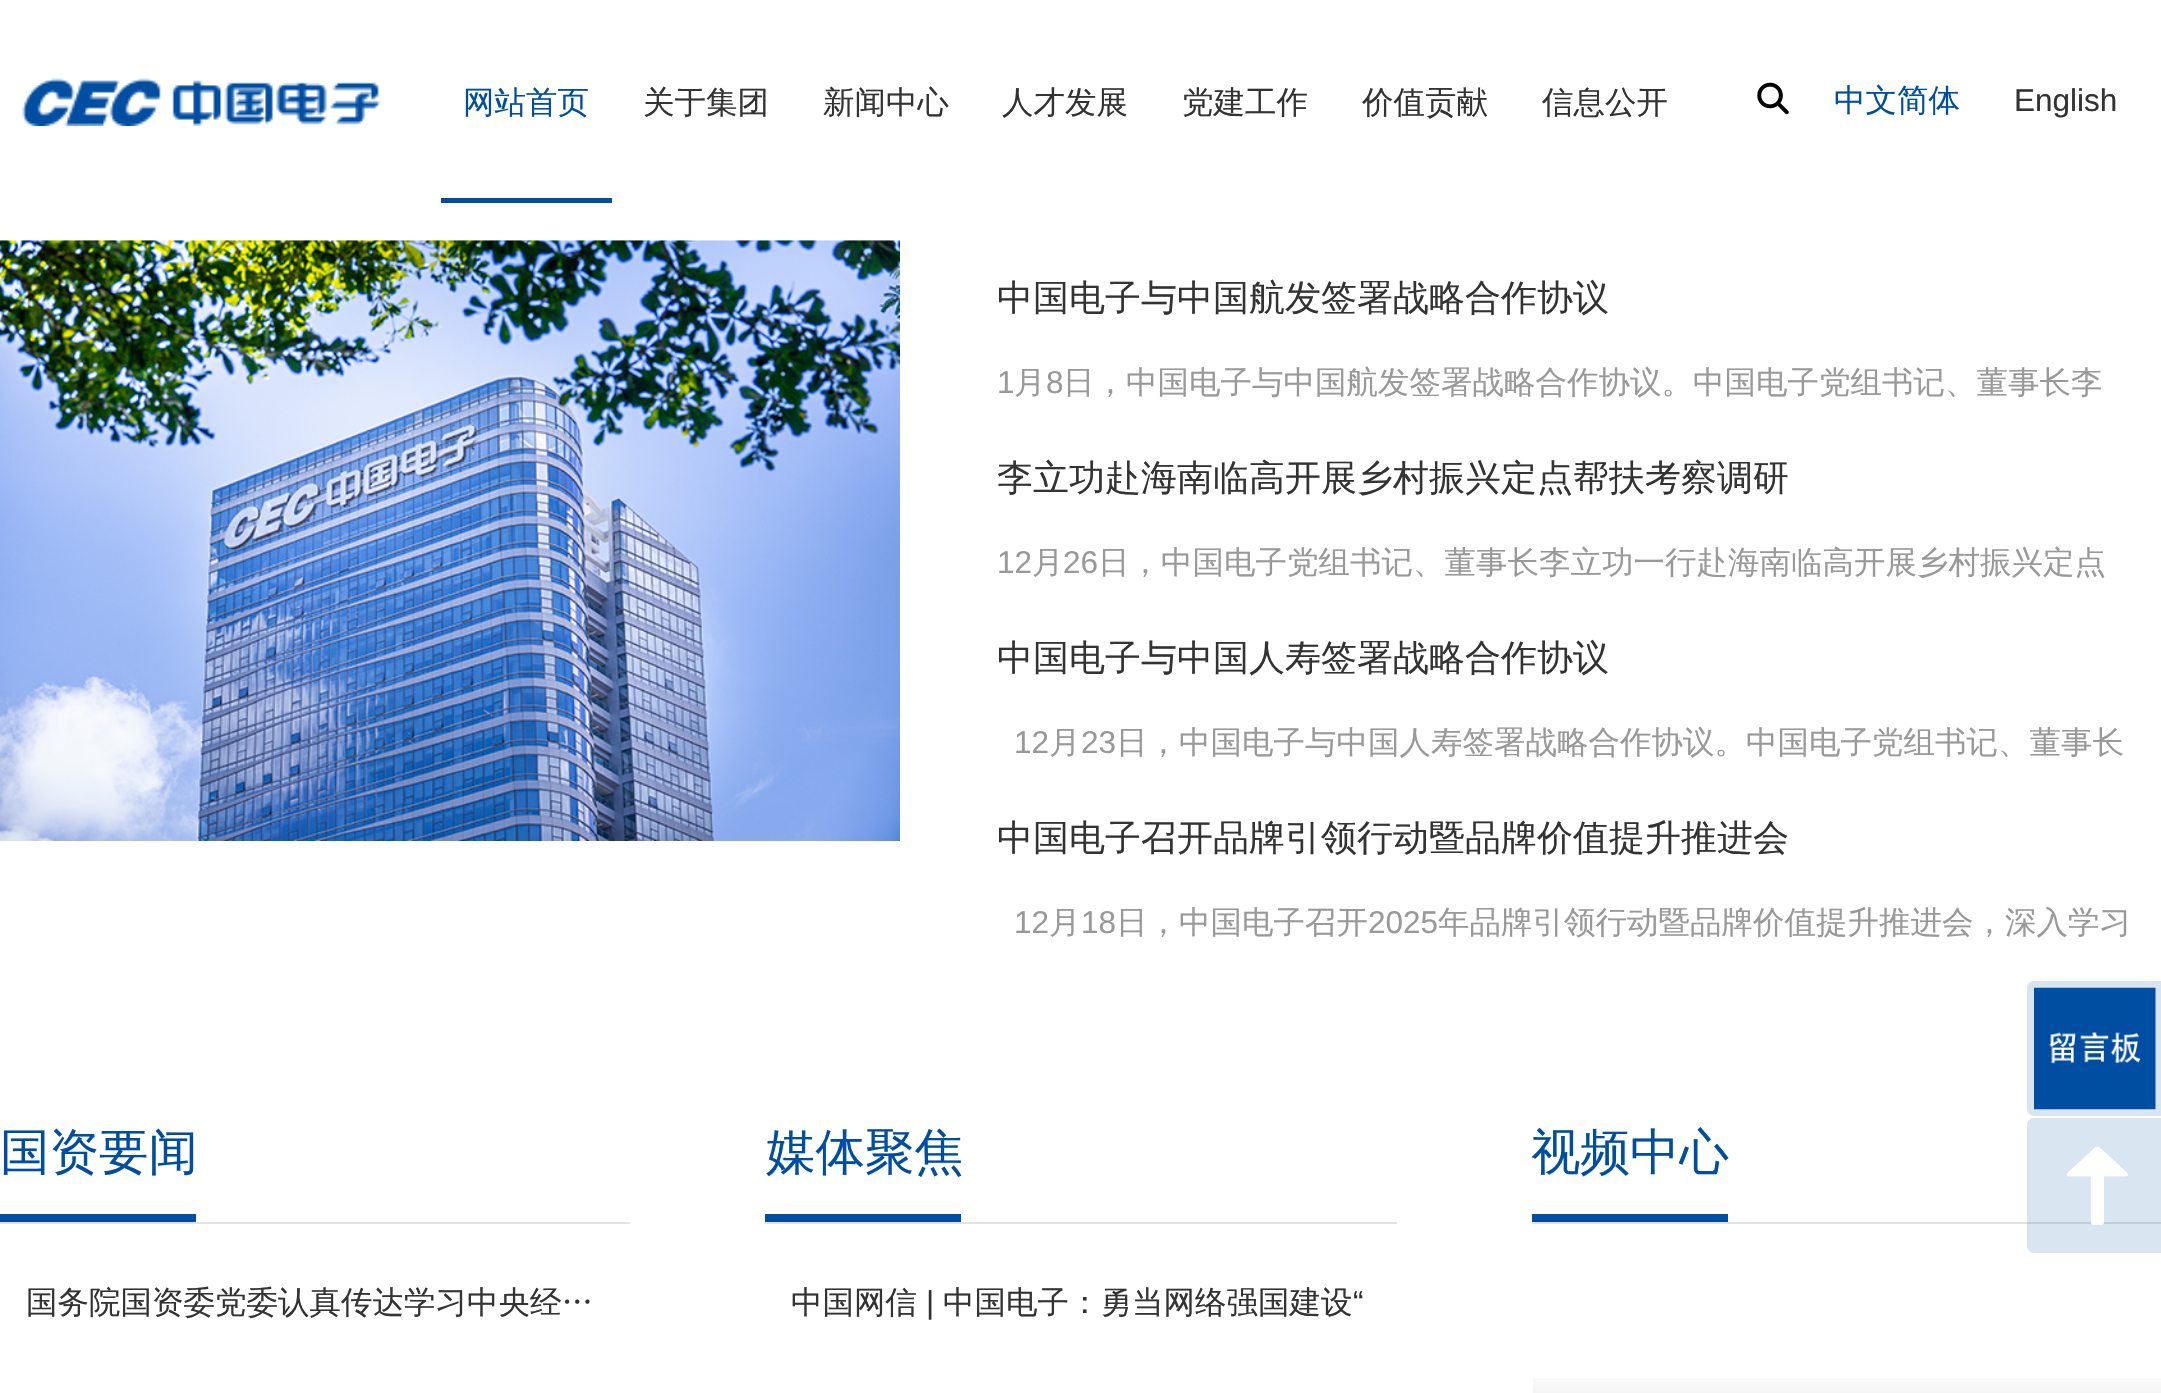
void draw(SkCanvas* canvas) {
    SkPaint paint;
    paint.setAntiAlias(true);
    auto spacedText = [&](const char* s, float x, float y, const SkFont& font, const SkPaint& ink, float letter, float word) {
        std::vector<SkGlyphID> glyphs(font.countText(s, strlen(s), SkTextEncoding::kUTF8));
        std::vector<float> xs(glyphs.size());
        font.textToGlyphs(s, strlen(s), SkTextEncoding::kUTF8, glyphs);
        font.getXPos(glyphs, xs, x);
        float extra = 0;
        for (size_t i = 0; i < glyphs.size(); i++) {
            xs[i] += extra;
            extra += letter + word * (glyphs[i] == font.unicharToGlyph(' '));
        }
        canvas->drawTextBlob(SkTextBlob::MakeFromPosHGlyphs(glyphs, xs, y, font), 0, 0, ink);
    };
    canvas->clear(0xFFFFFFFF);
    canvas->drawImageRect(SkImages::DeferredFromEncodedData(SkData::MakeFromFileName("img1.png")), SkRect::MakeXYWH(22, 78, 359, 48), SkSamplingOptions());
    paint.setColor(0xFF004EA2);
    canvas->drawRect(SkRect::MakeXYWH(441, 198, 171, 5), paint);
    SkFont font1(fontMgr->matchFamilyStyle("WenQuanYi Zen Hei", SkFontStyle(500, SkFontStyle::kNormal_Width, SkFontStyle::kUpright_Slant)), 31.5f);
    font1.setSubpixel(true);
    canvas->drawString("网站首页", 463, 113, font1, paint);
    paint.setColor(0xFF333333);
    canvas->drawString("关于集团", 643, 113, font1, paint);
    canvas->drawString("新闻中心", 823, 113, font1, paint);
    canvas->drawString("人才发展", 1002, 113, font1, paint);
    canvas->drawString("党建工作", 1182, 113, font1, paint);
    canvas->drawString("价值贡献", 1362, 113, font1, paint);
    canvas->drawString("信息公开", 1542, 113, font1, paint);
    canvas->drawImageRect(SkImages::DeferredFromEncodedData(SkData::MakeFromFileName("img2.png")), SkRect::MakeXYWH(1757, 82, 32, 33), SkSamplingOptions());
    paint.setColor(0xFF004EA2);
    canvas->drawString("中文简体", 1834, 111, font1, paint);
    SkFont font2(fontMgr->matchFamilyStyle("Liberation Sans", SkFontStyle::Normal()), 31.5f);
    font2.setSubpixel(true);
    paint.setColor(0xFF333333);
    canvas->drawString("English", 2014, 111, font2, paint);
    canvas->drawImageRect(SkImages::DeferredFromEncodedData(SkData::MakeFromFileName("img3.png")), SkRect::MakeXYWH(0, 240, 900, 601), SkSamplingOptions());
    SkFont font3(fontMgr->matchFamilyStyle("WenQuanYi Zen Hei", SkFontStyle(500, SkFontStyle::kNormal_Width, SkFontStyle::kUpright_Slant)), 36);
    font3.setSubpixel(true);
    canvas->drawString("中国电子与中国航发签署战略合作协议", 997, 310, font3, paint);
    paint.setColor(0xFF999999);
    canvas->drawString("1", 997, 393, font2, paint);
    canvas->drawString("月", 1014, 393, font1, paint);
    canvas->drawString("8", 1046, 393, font2, paint);
    canvas->drawString("日，中国电子与中国航发签署战略合作协议。中国电子党组书记、董事长李", 1063, 393, font1, paint);
    paint.setColor(0xFF333333);
    canvas->drawString("李立功赴海南临高开展乡村振兴定点帮扶考察调研", 997, 490, font3, paint);
    paint.setColor(0xFF999999);
    canvas->drawString("12", 997, 573, font2, paint);
    canvas->drawString("月", 1032, 573, font1, paint);
    canvas->drawString("26", 1063, 573, font2, paint);
    canvas->drawString("日，中国电子党组书记、董事长李立功一行赴海南临高开展乡村振兴定点", 1098, 573, font1, paint);
    paint.setColor(0xFF333333);
    canvas->drawString("中国电子与中国人寿签署战略合作协议", 997, 670, font3, paint);
    paint.setColor(0xFF999999);
    canvas->drawString("12", 1014, 753, font2, paint);
    canvas->drawString("月", 1049, 753, font1, paint);
    canvas->drawString("23", 1081, 753, font2, paint);
    canvas->drawString("日，中国电子与中国人寿签署战略合作协议。中国电子党组书记、董事长", 1116, 753, font1, paint);
    paint.setColor(0xFF333333);
    canvas->drawString("中国电子召开品牌引领行动暨品牌价值提升推进会", 997, 850, font3, paint);
    paint.setColor(0xFF999999);
    canvas->drawString("12", 1014, 933, font2, paint);
    canvas->drawString("月", 1049, 933, font1, paint);
    canvas->drawString("18", 1081, 933, font2, paint);
    canvas->drawString("日，中国电子召开", 1116, 933, font1, paint);
    canvas->drawString("2025", 1368, 933, font2, paint);
    canvas->drawString("年品牌引领行动暨品牌价值提升推进会，深入学习", 1438, 933, font1, paint);
    paint.setColor(0xFFE2E2E2);
    canvas->drawRect(SkRect::MakeXYWH(0, 1222, 630, 2), paint);
    paint.setColor(0xFF004EA1);
    canvas->drawRect(SkRect::MakeXYWH(0, 1214, 196, 8), paint);
    SkFont font4(fontMgr->matchFamilyStyle("WenQuanYi Zen Hei", SkFontStyle(500, SkFontStyle::kNormal_Width, SkFontStyle::kUpright_Slant)), 49.5f);
    font4.setSubpixel(true);
    paint.setColor(0xFF004EA2);
    canvas->drawString("国资要闻", 0, 1169, font4, paint);
    paint.setColor(0xFF333333);
    spacedText("国务院国资委党委认真传达学习中央经…", 26, 1313, font1, paint, 0, -1);
    paint.setColor(0xFFE2E2E2);
    canvas->drawRect(SkRect::MakeXYWH(765, 1222, 632, 2), paint);
    paint.setColor(0xFF004EA1);
    canvas->drawRect(SkRect::MakeXYWH(765, 1214, 196, 8), paint);
    paint.setColor(0xFF004EA2);
    canvas->drawString("媒体聚焦", 766, 1169, font4, paint);
    paint.setColor(0xFF333333);
    canvas->drawString("中国网信", 791, 1313, font1, paint);
    canvas->drawString("|", 926, 1313, font2, paint);
    canvas->drawString("中国电子：勇当网络强国建设", 943, 1313, font1, paint);
    canvas->drawString("“", 1353, 1313, font2, paint);
    paint.setColor(0xFFE2E2E2);
    canvas->drawRect(SkRect::MakeXYWH(1532, 1222, 629, 2), paint);
    paint.setColor(0xFF004EA1);
    canvas->drawRect(SkRect::MakeXYWH(1532, 1214, 196, 8), paint);
    paint.setColor(0xFF004EA2);
    canvas->drawString("视频中心", 1531, 1169, font4, paint);
    canvas->drawImageRect(SkImages::DeferredFromEncodedData(SkData::MakeFromFileName("img4.png")), SkRect::MakeXYWH(1533, 1378, 628, 15), SkSamplingOptions());
    paint.setColor(0xFFD9E4F1);
    canvas->drawPath(SkPathBuilder().moveTo(2034, 981).lineTo(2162, 981).lineTo(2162, 1116).lineTo(2034, 1116).cubicTo(2030, 1116, 2027, 1113, 2027, 1109).lineTo(2027, 988).cubicTo(2027, 984, 2030, 981, 2034, 981).close().detach(), paint);
    canvas->drawImageRect(SkImages::DeferredFromEncodedData(SkData::MakeFromFileName("img5.png")), SkRect::MakeXYWH(2034, 987, 122, 123), SkSamplingOptions());
    paint.setColor(0x26004EA2);
    canvas->drawPath(SkPathBuilder().moveTo(2034, 1118).lineTo(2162, 1118).lineTo(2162, 1253).lineTo(2034, 1253).cubicTo(2030, 1253, 2027, 1250, 2027, 1246).lineTo(2027, 1125).cubicTo(2027, 1121, 2030, 1118, 2034, 1118).close().detach(), paint);
    canvas->drawImageRect(SkImages::DeferredFromEncodedData(SkData::MakeFromFileName("img6.png")), SkRect::MakeXYWH(2067, 1146, 61, 79), SkSamplingOptions());
}
